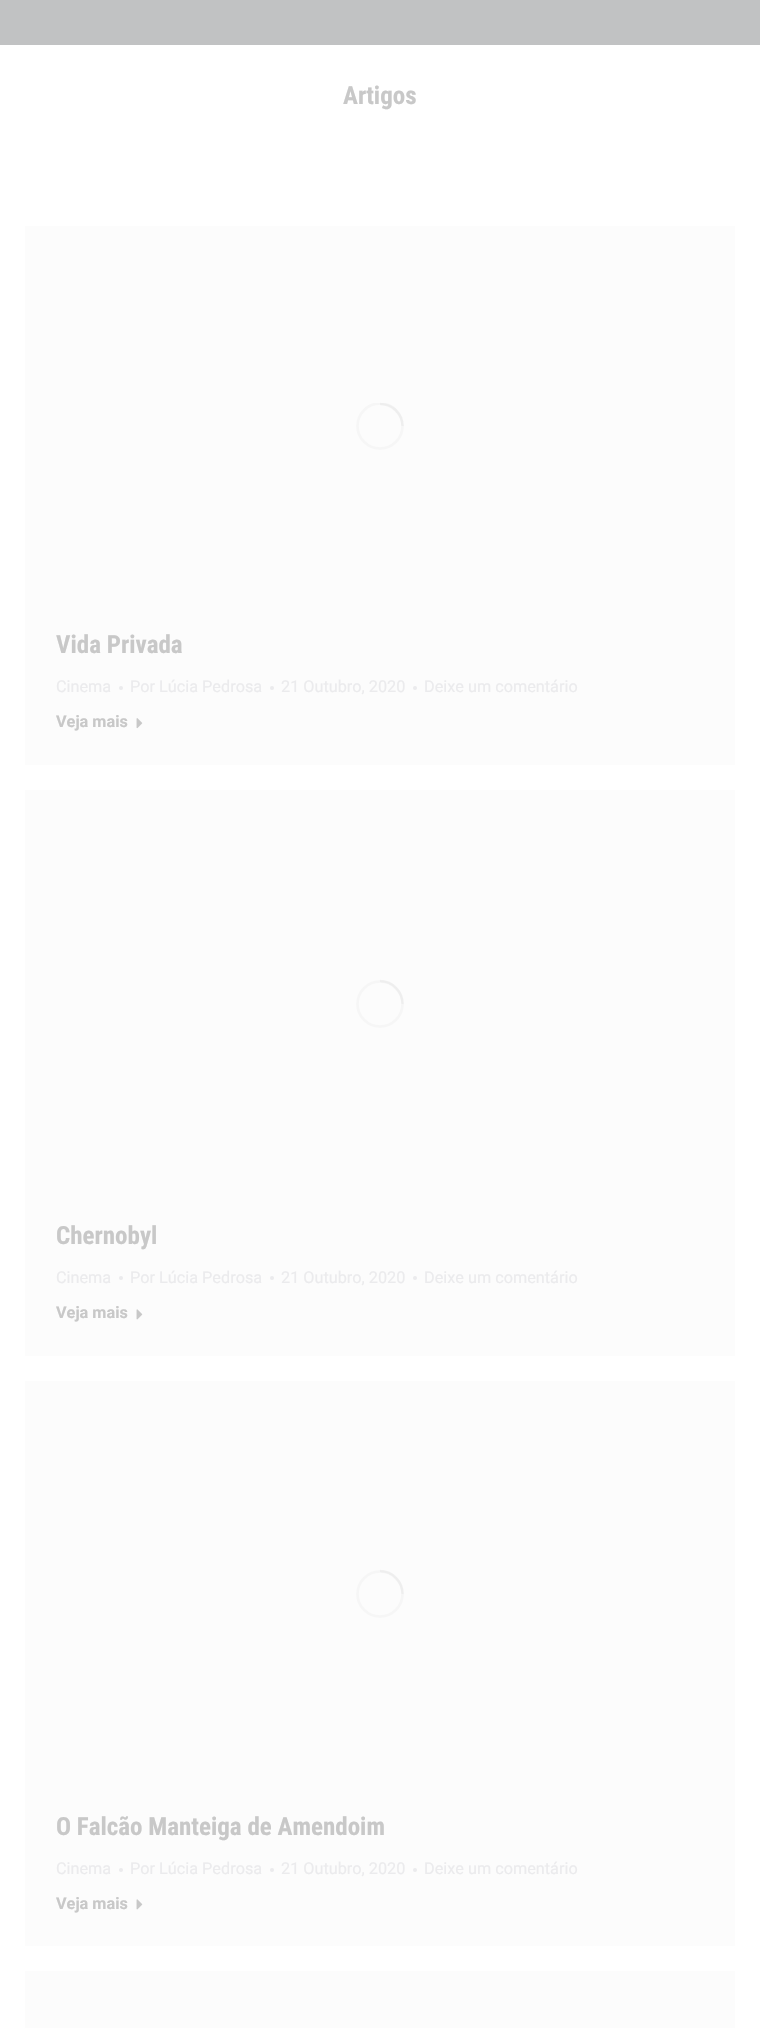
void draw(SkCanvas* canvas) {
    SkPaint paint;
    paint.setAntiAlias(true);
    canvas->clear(0xFFFFFFFF);
    paint.setColor(0xFFC1C2C3);
    canvas->drawRect(SkRect::MakeXYWH(0, 0, 760, 45), paint);
    SkFont font1(fontMgr->matchFamilyStyle("Roboto Condensed", SkFontStyle::Bold()), 25);
    font1.setSubpixel(true);
    paint.setColor(0xFFC8C8C8);
    canvas->drawString("Artigos", 343, 104, font1, paint);
    paint.setColor(0xFFFCFCFC);
    canvas->drawRect(SkRect::MakeXYWH(25, 226, 710, 539), paint);
    canvas->save();
    canvas->clipRect(SkRect::MakeXYWH(356, 403, 48, 47));
    paint.setStyle(SkPaint::kStroke_Style);
    paint.setStrokeWidth(2.5f);
    paint.setColor(0xFFF6F6F6);
    canvas->drawCircle(380, 426, 22.5f, paint);
    canvas->restore();
    paint.setColor(0x40D8D8D8);
    canvas->drawPath(SkPathBuilder().moveTo(402.5f, 426).cubicTo(402.5f, 414, 392.5f, 404, 380, 404).detach(), paint);
    paint.setStyle(SkPaint::kFill_Style);
    paint.setColor(0xFFC8C8C8);
    canvas->drawString("Vida Privada", 56, 653, font1, paint);
    SkFont font2(fontMgr->matchFamilyStyle("Roboto", SkFontStyle::Normal()), 16.25f);
    font2.setSubpixel(true);
    paint.setColor(0xFFEBEBED);
    canvas->drawString("Cinema", 56, 692, font2, paint);
    canvas->drawCircle(121, 688, 2, paint);
    canvas->drawString("Por Lúcia Pedrosa", 130, 692, font2, paint);
    canvas->drawCircle(272, 688, 2, paint);
    canvas->drawString("21 Outubro, 2020", 281, 692, font2, paint);
    canvas->drawCircle(415, 688, 2, paint);
    canvas->drawString("Deixe um comentário", 424, 692, font2, paint);
    SkFont font3(fontMgr->matchFamilyStyle("Roboto", SkFontStyle::Bold()), 16.25f);
    font3.setSubpixel(true);
    paint.setColor(0xFFC8C8C8);
    canvas->drawString("Veja mais", 56, 727, font3, paint);
    canvas->drawImageRect(SkImages::DeferredFromEncodedData(SkData::MakeFromFileName("img1.png")), SkRect::MakeXYWH(136, 718, 7, 11), SkSamplingOptions());
    paint.setColor(0xFFFCFCFC);
    canvas->drawRect(SkRect::MakeXYWH(25, 790, 710, 566), paint);
    paint.setStyle(SkPaint::kStroke_Style);
    paint.setColor(0xFFF6F6F6);
    canvas->drawCircle(380, 1004, 22.5f, paint);
    paint.setColor(0x40D8D8D8);
    canvas->drawPath(SkPathBuilder().moveTo(402.5f, 1004).cubicTo(402.5f, 991.5f, 392.5f, 981, 380, 981).detach(), paint);
    paint.setStyle(SkPaint::kFill_Style);
    paint.setColor(0xFFC8C8C8);
    canvas->drawString("Chernobyl", 56, 1244, font1, paint);
    paint.setColor(0xFFEBEBED);
    canvas->drawString("Cinema", 56, 1283, font2, paint);
    canvas->drawCircle(121, 1278, 2, paint);
    canvas->drawString("Por Lúcia Pedrosa", 130, 1283, font2, paint);
    canvas->drawCircle(272, 1278, 2, paint);
    canvas->drawString("21 Outubro, 2020", 281, 1283, font2, paint);
    canvas->drawCircle(415, 1278, 2, paint);
    canvas->drawString("Deixe um comentário", 424, 1283, font2, paint);
    paint.setColor(0xFFC8C8C8);
    canvas->drawString("Veja mais", 56, 1318, font3, paint);
    canvas->drawImageRect(SkImages::DeferredFromEncodedData(SkData::MakeFromFileName("img2.png")), SkRect::MakeXYWH(136, 1309, 7, 11), SkSamplingOptions());
    paint.setColor(0xFFFCFCFC);
    canvas->drawRect(SkRect::MakeXYWH(25, 1381, 710, 565), paint);
    paint.setStyle(SkPaint::kStroke_Style);
    paint.setColor(0xFFF6F6F6);
    canvas->drawCircle(380, 1594, 22.5f, paint);
    paint.setColor(0x40D8D8D8);
    canvas->drawPath(SkPathBuilder().moveTo(402.5f, 1594).cubicTo(402.5f, 1581.5f, 392.5f, 1571, 380, 1571).detach(), paint);
    paint.setStyle(SkPaint::kFill_Style);
    paint.setColor(0xFFC8C8C8);
    canvas->drawString("O Falcão Manteiga de Amendoim", 56, 1835, font1, paint);
    paint.setColor(0xFFEBEBED);
    canvas->drawString("Cinema", 56, 1874, font2, paint);
    canvas->drawCircle(121, 1870, 2, paint);
    canvas->drawString("Por Lúcia Pedrosa", 130, 1874, font2, paint);
    canvas->drawCircle(272, 1870, 2, paint);
    canvas->drawString("21 Outubro, 2020", 281, 1874, font2, paint);
    canvas->drawCircle(415, 1870, 2, paint);
    canvas->drawString("Deixe um comentário", 424, 1874, font2, paint);
    paint.setColor(0xFFC8C8C8);
    canvas->drawString("Veja mais", 56, 1909, font3, paint);
    canvas->drawImageRect(SkImages::DeferredFromEncodedData(SkData::MakeFromFileName("img2.png")), SkRect::MakeXYWH(136, 1899, 7, 11), SkSamplingOptions());
    paint.setColor(0xFFFCFCFC);
    canvas->drawRect(SkRect::MakeXYWH(25, 1971, 710, 57), paint);
}
